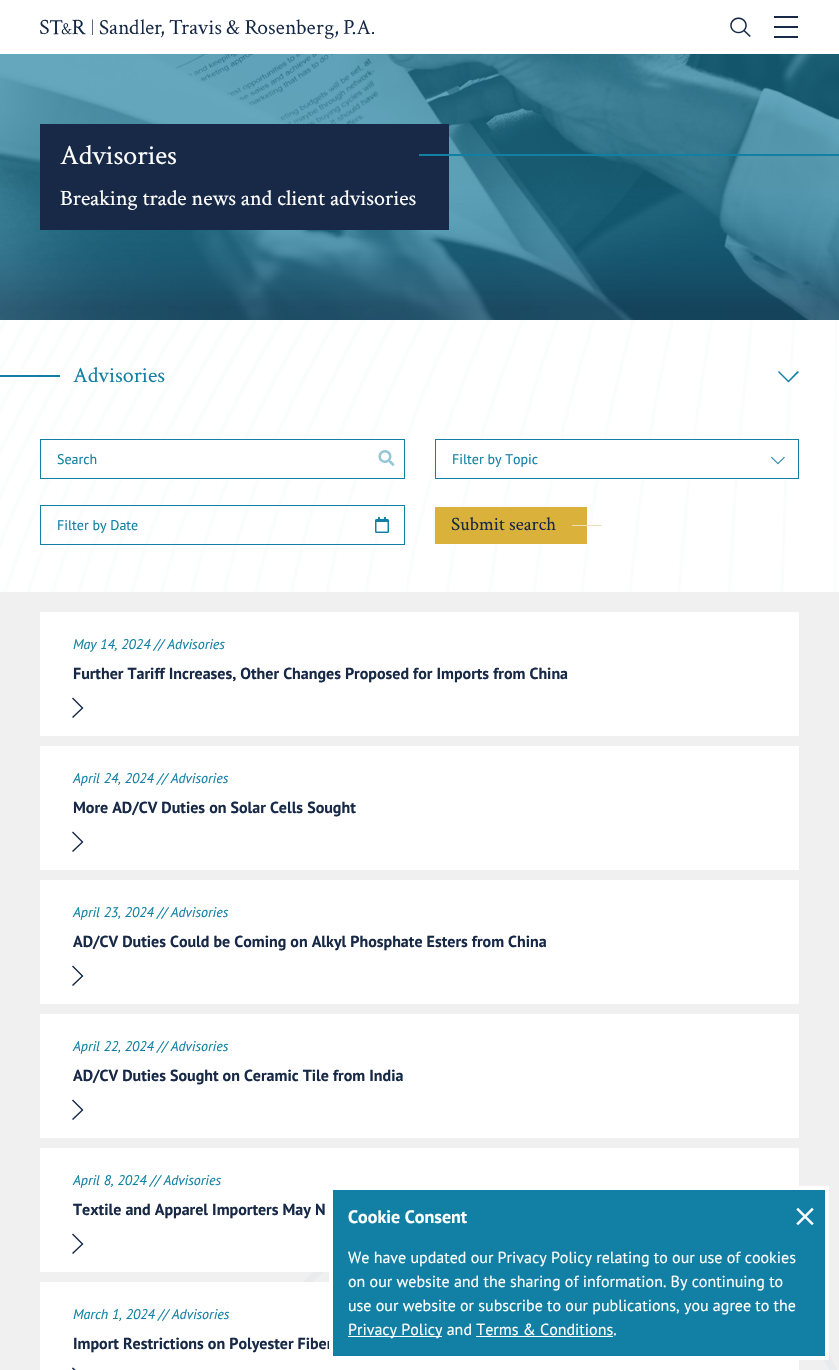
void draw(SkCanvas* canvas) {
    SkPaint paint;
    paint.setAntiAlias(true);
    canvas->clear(0xFFFFFFFF);
    canvas->drawImageRect(SkImages::DeferredFromEncodedData(SkData::MakeFromFileName("img1.png")), SkRect::MakeXYWH(40, 19, 334, 20), SkSamplingOptions());
    canvas->drawImageRect(SkImages::DeferredFromEncodedData(SkData::MakeFromFileName("img2.png")), SkRect::MakeXYWH(730, 17, 21, 20), SkSamplingOptions());
    paint.setColor(0xFF172947);
    canvas->drawRect(SkRect::MakeXYWH(774, 16, 24, 2), paint);
    canvas->drawRect(SkRect::MakeXYWH(774, 26, 24, 2), paint);
    canvas->drawRect(SkRect::MakeXYWH(774, 36, 24, 2), paint);
    paint.setColor(0xFF1280A4);
    canvas->drawRect(SkRect::MakeXYWH(0, 54, 839, 266), paint);
    canvas->drawImageRect(SkImages::DeferredFromEncodedData(SkData::MakeFromFileName("img3.png")), SkRect::MakeXYWH(0, 54, 839, 266), SkSamplingOptions());
    {
        const SkColor colors[] = {0x0A1280A4, 0x66172947};
        const float stops[] = {0.5f, 0.95f};
        const SkPoint ends[] = {{420, 54}, {420, 320}};
        paint.setShader(SkGradientShader::MakeLinear(ends, colors, stops, 2, SkTileMode::kClamp));
        paint.setAlpha(255);
    }
    canvas->drawRect(SkRect::MakeXYWH(0, 54, 839, 266), paint);
    paint.setShader(nullptr);
    paint.setColor(0xFF172947);
    canvas->drawRect(SkRect::MakeXYWH(40, 124, 409, 106), paint);
    SkFont font1(fontMgr->matchFamilyStyle("Crimson Text", SkFontStyle::Normal()), 28);
    font1.setSubpixel(true);
    paint.setColor(0xFFFFFFFF);
    canvas->drawString("Advisories", 60, 164, font1, paint);
    SkFont font2(fontMgr->matchFamilyStyle("Crimson Text", SkFontStyle::Normal()), 22);
    font2.setSubpixel(true);
    canvas->drawString("Breaking trade news and client advisories", 60, 205, font2, paint);
    paint.setColor(0xFF1280A4);
    canvas->drawRect(SkRect::MakeXYWH(419, 154, 420, 2), paint);
    canvas->drawImageRect(SkImages::DeferredFromEncodedData(SkData::MakeFromFileName("img4.png")), SkRect::MakeXYWH(0, 320, 837, 272), SkSamplingOptions());
    canvas->drawRect(SkRect::MakeXYWH(0, 375, 60, 2), paint);
    canvas->drawString("Advisories", 73, 382, font2, paint);
    canvas->drawPath(SkPathBuilder().moveTo(799, 372).lineTo(788.5f, 382.5f).lineTo(778, 372).lineTo(779, 371).lineTo(788.5f, 380.5f).lineTo(797.5f, 371).close().detach(), paint);
    paint.setColor(0xFFFFFFFF);
    canvas->drawRect(SkRect::MakeXYWH(40.5f, 439.5f, 364, 39), paint);
    paint.setStyle(SkPaint::kStroke_Style);
    paint.setStrokeWidth(1);
    paint.setColor(0xFF1280A4);
    canvas->drawRect(SkRect::MakeXYWH(40.5f, 439.5f, 364, 39), paint);
    SkFont font3(fontMgr->matchFamilyStyle("PT Sans", SkFontStyle::Normal()), 14);
    font3.setSubpixel(true);
    paint.setStyle(SkPaint::kFill_Style);
    canvas->drawString("Search", 57, 464, font3, paint);
    canvas->drawImageRect(SkImages::DeferredFromEncodedData(SkData::MakeFromFileName("img5.png")), SkRect::MakeXYWH(378, 450, 17, 16), SkSamplingOptions());
    paint.setColor(0xFFFFFFFF);
    canvas->drawRect(SkRect::MakeXYWH(436, 440, 353, 38), paint);
    paint.setStyle(SkPaint::kStroke_Style);
    paint.setColor(0xFF1280A4);
    canvas->drawRect(SkRect::MakeXYWH(435.5f, 439.5f, 363, 39), paint);
    paint.setStyle(SkPaint::kFill_Style);
    canvas->drawString("Filter by Topic", 452, 464, font3, paint);
    canvas->drawImageRect(SkImages::DeferredFromEncodedData(SkData::MakeFromFileName("img6.png")), SkRect::MakeXYWH(771, 456, 14, 9), SkSamplingOptions());
    paint.setStyle(SkPaint::kStroke_Style);
    canvas->drawRect(SkRect::MakeXYWH(40.5f, 505.5f, 364, 39), paint);
    paint.setStyle(SkPaint::kFill_Style);
    canvas->drawString("Filter by Date", 57, 530, font3, paint);
    canvas->drawImageRect(SkImages::DeferredFromEncodedData(SkData::MakeFromFileName("img7.png")), SkRect::MakeXYWH(375, 517, 15, 16), SkSamplingOptions());
    paint.setColor(0xFFDAB13B);
    canvas->drawRect(SkRect::MakeXYWH(435, 507, 152, 37), paint);
    SkFont font4(fontMgr->matchFamilyStyle("Crimson Text", SkFontStyle::Normal()), 19);
    font4.setSubpixel(true);
    paint.setColor(0xFF172947);
    canvas->drawString("Submit search", 451, 530, font4, paint);
    paint.setColor(0xFFECE0BC);
    canvas->drawRect(SkRect::MakeXYWH(572, 525, 30, 1), paint);
    paint.setColor(0xFFF0F0F0);
    canvas->drawRect(SkRect::MakeXYWH(0, 592, 839, 778), paint);
    paint.setColor(0xFFFFFFFF);
    canvas->drawRect(SkRect::MakeXYWH(40, 612, 759, 124), paint);
    SkFont font5(fontMgr->matchFamilyStyle("PT Sans", SkFontStyle::Italic()), 14);
    font5.setSubpixel(true);
    paint.setColor(0xFF1280A4);
    canvas->drawString("May 14, 2024 // Advisories", 73, 649, font5, paint);
    SkFont font6(fontMgr->matchFamilyStyle("PT Sans", SkFontStyle::Bold()), 16);
    font6.setSubpixel(true);
    paint.setColor(0xFF172947);
    canvas->drawString("Further Tariff Increases, Other Changes Proposed for Imports from China", 73, 679, font6, paint);
    canvas->drawPath(SkPathBuilder().moveTo(73, 697.5f).lineTo(83.5f, 708).lineTo(73, 718).lineTo(72, 717).lineTo(81.5f, 708).lineTo(72, 698.5f).close().detach(), paint);
    paint.setColor(0xFFFFFFFF);
    canvas->drawRect(SkRect::MakeXYWH(40, 746, 759, 124), paint);
    paint.setColor(0xFF1280A4);
    canvas->drawString("April 24, 2024 // Advisories", 73, 783, font5, paint);
    paint.setColor(0xFF172947);
    canvas->drawString("More AD/CV Duties on Solar Cells Sought", 73, 813, font6, paint);
    canvas->drawPath(SkPathBuilder().moveTo(73, 831.5f).lineTo(83.5f, 842).lineTo(73, 852).lineTo(72, 851).lineTo(81.5f, 842).lineTo(72, 832.5f).close().detach(), paint);
    paint.setColor(0xFFFFFFFF);
    canvas->drawRect(SkRect::MakeXYWH(40, 880, 759, 124), paint);
    paint.setColor(0xFF1280A4);
    canvas->drawString("April 23, 2024 // Advisories", 73, 917, font5, paint);
    paint.setColor(0xFF172947);
    canvas->drawString("AD/CV Duties Could be Coming on Alkyl Phosphate Esters from China", 73, 947, font6, paint);
    canvas->drawPath(SkPathBuilder().moveTo(73, 965.5f).lineTo(83.5f, 976).lineTo(73, 986).lineTo(72, 985).lineTo(81.5f, 976).lineTo(72, 966.5f).close().detach(), paint);
    paint.setColor(0xFFFFFFFF);
    canvas->drawRect(SkRect::MakeXYWH(40, 1014, 759, 124), paint);
    paint.setColor(0xFF1280A4);
    canvas->drawString("April 22, 2024 // Advisories", 73, 1051, font5, paint);
    paint.setColor(0xFF172947);
    canvas->drawString("AD/CV Duties Sought on Ceramic Tile from India", 73, 1081, font6, paint);
    canvas->drawPath(SkPathBuilder().moveTo(73, 1099.5f).lineTo(83.5f, 1110).lineTo(73, 1120).lineTo(72, 1119).lineTo(81.5f, 1110).lineTo(72, 1100.5f).close().detach(), paint);
    paint.setColor(0xFFFFFFFF);
    canvas->drawRect(SkRect::MakeXYWH(40, 1148, 759, 124), paint);
    paint.setColor(0xFF1280A4);
    canvas->drawString("April 8, 2024 // Advisories", 73, 1185, font5, paint);
    paint.setColor(0xFF172947);
    canvas->drawString("Textile and Apparel Importers May N", 73, 1215, font6, paint);
    canvas->drawPath(SkPathBuilder().moveTo(73, 1233.5f).lineTo(83.5f, 1244).lineTo(73, 1254).lineTo(72, 1253).lineTo(81.5f, 1244).lineTo(72, 1234.5f).close().detach(), paint);
    canvas->drawImageRect(SkImages::DeferredFromEncodedData(SkData::MakeFromFileName("img9.png")), SkRect::MakeXYWH(303, 1272, 534, 98), SkSamplingOptions());
    paint.setColor(0xFFFFFFFF);
    canvas->drawRect(SkRect::MakeXYWH(40, 1282, 759, 88), paint);
    paint.setColor(0xFF1280A4);
    canvas->drawString("March 1, 2024 // Advisories", 73, 1319, font5, paint);
    paint.setColor(0xFF172947);
    canvas->drawString("Import Restrictions on Polyester Fiber", 73, 1349, font6, paint);
    canvas->drawImageRect(SkImages::DeferredFromEncodedData(SkData::MakeFromFileName("img8.png")), SkRect::MakeXYWH(72, 1367, 4, 3), SkSamplingOptions());
    paint.setColor(0xFF1280A4);
    canvas->drawRect(SkRect::MakeXYWH(331, 1188, 496, 170), paint);
    paint.setStyle(SkPaint::kStroke_Style);
    paint.setStrokeWidth(4);
    paint.setColor(0xFFFFFFFF);
    canvas->drawRect(SkRect::MakeXYWH(331, 1188, 496, 170), paint);
    SkFont font7(fontMgr->matchFamilyStyle("PT Sans", SkFontStyle::Bold()), 18);
    font7.setSubpixel(true);
    paint.setStyle(SkPaint::kFill_Style);
    canvas->drawString("Cookie Consent", 348, 1223, font7, paint);
    SkFont font8(fontMgr->matchFamilyStyle("PT Sans", SkFontStyle::Normal()), 16);
    font8.setSubpixel(true);
    canvas->drawString("We have updated our Privacy Policy relating to our use of cookies", 348, 1263, font8, paint);
    canvas->drawString("on our website and the sharing of information. By continuing to", 348, 1287, font8, paint);
    canvas->drawString("use our website or subscribe to our publications, you agree to the", 348, 1311, font8, paint);
    canvas->drawRect(SkRect::MakeXYWH(348, 1336, 94, 1), paint);
    canvas->drawString("Privacy Policy and Terms & Conditions.", 348, 1335, font8, paint);
    canvas->drawRect(SkRect::MakeXYWH(476, 1336, 137, 1), paint);
    canvas->drawImageRect(SkImages::DeferredFromEncodedData(SkData::MakeFromFileName("img10.png")), SkRect::MakeXYWH(796, 1207, 18, 19), SkSamplingOptions());
}
